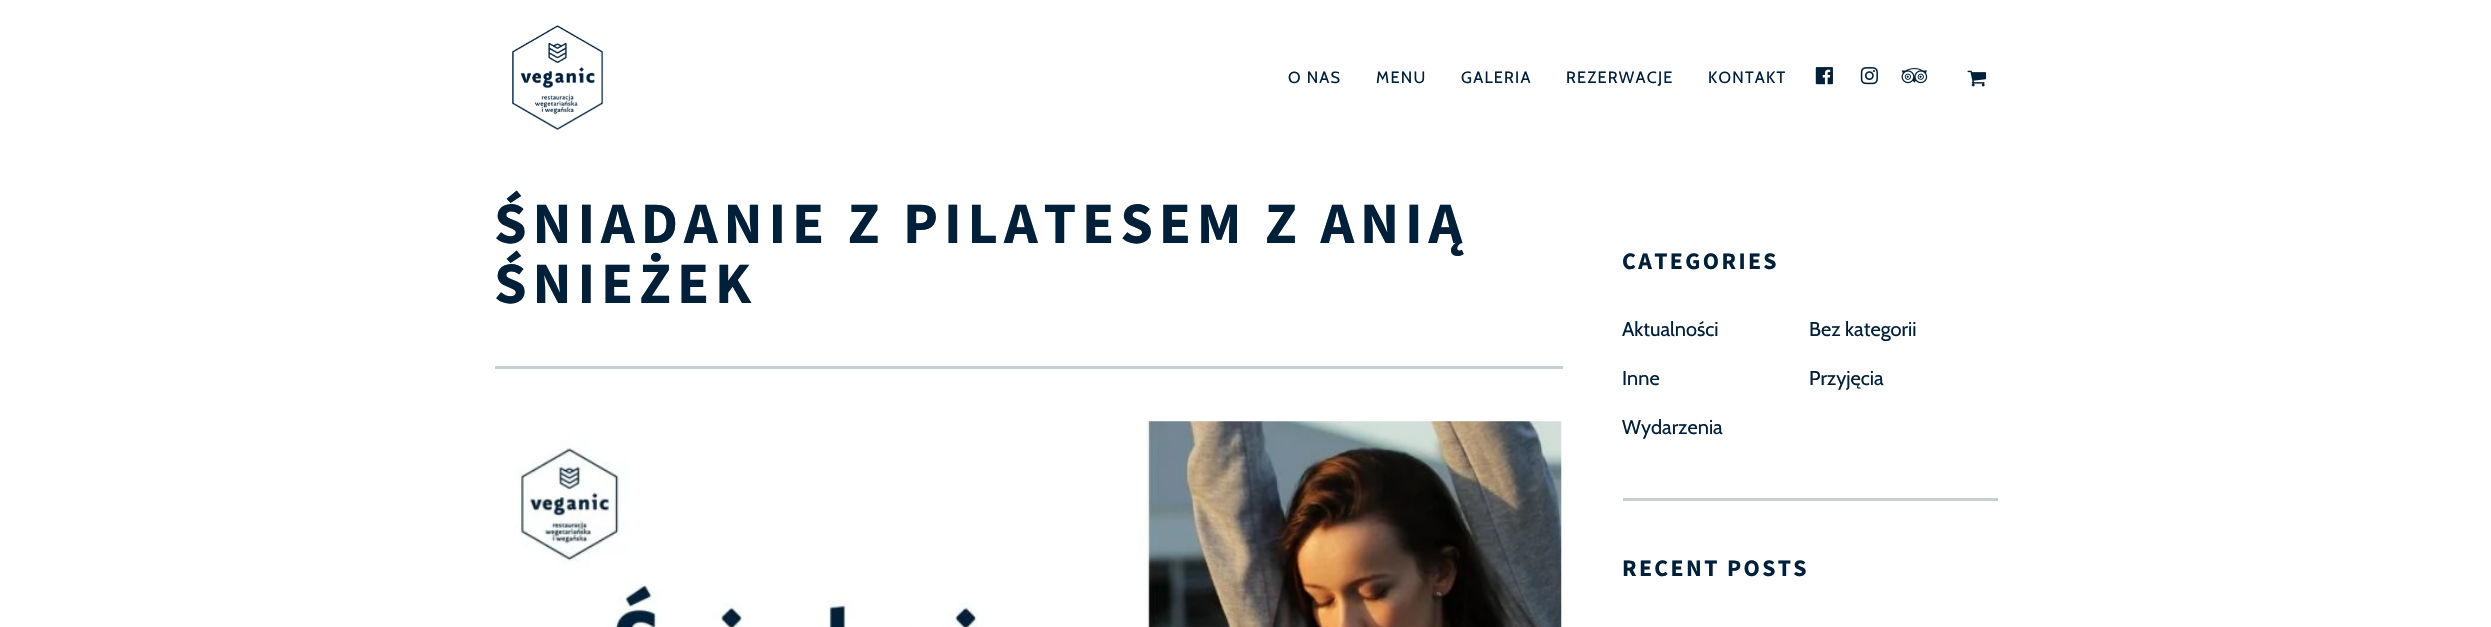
void draw(SkCanvas* canvas) {
    SkPaint paint;
    paint.setAntiAlias(true);
    auto spacedText = [&](const char* s, float x, float y, const SkFont& font, const SkPaint& ink, float letter, float word) {
        std::vector<SkGlyphID> glyphs(font.countText(s, strlen(s), SkTextEncoding::kUTF8));
        std::vector<float> xs(glyphs.size());
        font.textToGlyphs(s, strlen(s), SkTextEncoding::kUTF8, glyphs);
        font.getXPos(glyphs, xs, x);
        float extra = 0;
        for (size_t i = 0; i < glyphs.size(); i++) {
            xs[i] += extra;
            extra += letter + word * (glyphs[i] == font.unicharToGlyph(' '));
        }
        canvas->drawTextBlob(SkTextBlob::MakeFromPosHGlyphs(glyphs, xs, y, font), 0, 0, ink);
    };
    canvas->clear(0xFFFFFFFF);
    canvas->drawImageRect(SkImages::DeferredFromEncodedData(SkData::MakeFromFileName("img1.png")), SkRect::MakeXYWH(512, 25, 92, 105), SkSamplingOptions());
    SkFont font1(fontMgr->matchFamilyStyle("Cabin", SkFontStyle::Normal()), 16.25f);
    font1.setSubpixel(true);
    paint.setColor(0xFF001F38);
    spacedText("O NAS", 1288, 83, font1, paint, 1.25f, 0);
    spacedText("MENU", 1376, 83, font1, paint, 1.25f, 0);
    spacedText("GALERIA", 1461, 83, font1, paint, 1.25f, 0);
    spacedText("REZERWACJE", 1566, 83, font1, paint, 1.25f, 0);
    spacedText("KONTAKT", 1708, 83, font1, paint, 1.25f, 0);
    canvas->drawImageRect(SkImages::DeferredFromEncodedData(SkData::MakeFromFileName("img2.png")), SkRect::MakeXYWH(1815, 67, 18, 18), SkSamplingOptions());
    canvas->drawImageRect(SkImages::DeferredFromEncodedData(SkData::MakeFromFileName("img3.png")), SkRect::MakeXYWH(1860, 67, 18, 18), SkSamplingOptions());
    canvas->drawImageRect(SkImages::DeferredFromEncodedData(SkData::MakeFromFileName("img4.png")), SkRect::MakeXYWH(1901, 68, 27, 16), SkSamplingOptions());
    canvas->drawImageRect(SkImages::DeferredFromEncodedData(SkData::MakeFromFileName("img5.png")), SkRect::MakeXYWH(1967, 70, 20, 17), SkSamplingOptions());
    SkFont font2(fontMgr->matchFamilyStyle("Source Sans Pro", SkFontStyle::Bold()), 58.75f);
    font2.setSubpixel(true);
    spacedText("ŚNIADANIE Z PILATESEM Z ANIĄ", 494, 243, font2, paint, 5.9f, 0);
    spacedText("ŚNIEŻEK", 494, 303, font2, paint, 5.9f, 0);
    paint.setColor(0xFFC8CFD4);
    canvas->drawRect(SkRect::MakeXYWH(495, 366, 1068, 3), paint);
    canvas->drawImageRect(SkImages::DeferredFromEncodedData(SkData::MakeFromFileName("img6.png")), SkRect::MakeXYWH(514, 421, 1048, 206), SkSamplingOptions());
    canvas->drawRect(SkRect::MakeXYWH(1623, 498, 375, 3), paint);
    SkFont font3(fontMgr->matchFamilyStyle("Source Sans Pro", SkFontStyle::Bold()), 23.75f);
    font3.setSubpixel(true);
    paint.setColor(0xFF001F38);
    spacedText("CATEGORIES", 1622, 269, font3, paint, 2.4f, 0);
    SkFont font4(fontMgr->matchFamilyStyle("Cabin", SkFontStyle::Normal()), 20);
    font4.setSubpixel(true);
    canvas->drawString("Aktualności", 1622, 336, font4, paint);
    canvas->drawString("Bez kategorii", 1809, 336, font4, paint);
    canvas->drawString("Inne", 1622, 385, font4, paint);
    canvas->drawString("Przyjęcia", 1809, 385, font4, paint);
    canvas->drawString("Wydarzenia", 1622, 434, font4, paint);
    spacedText("RECENT POSTS", 1622, 576, font3, paint, 2.4f, 0);
}
